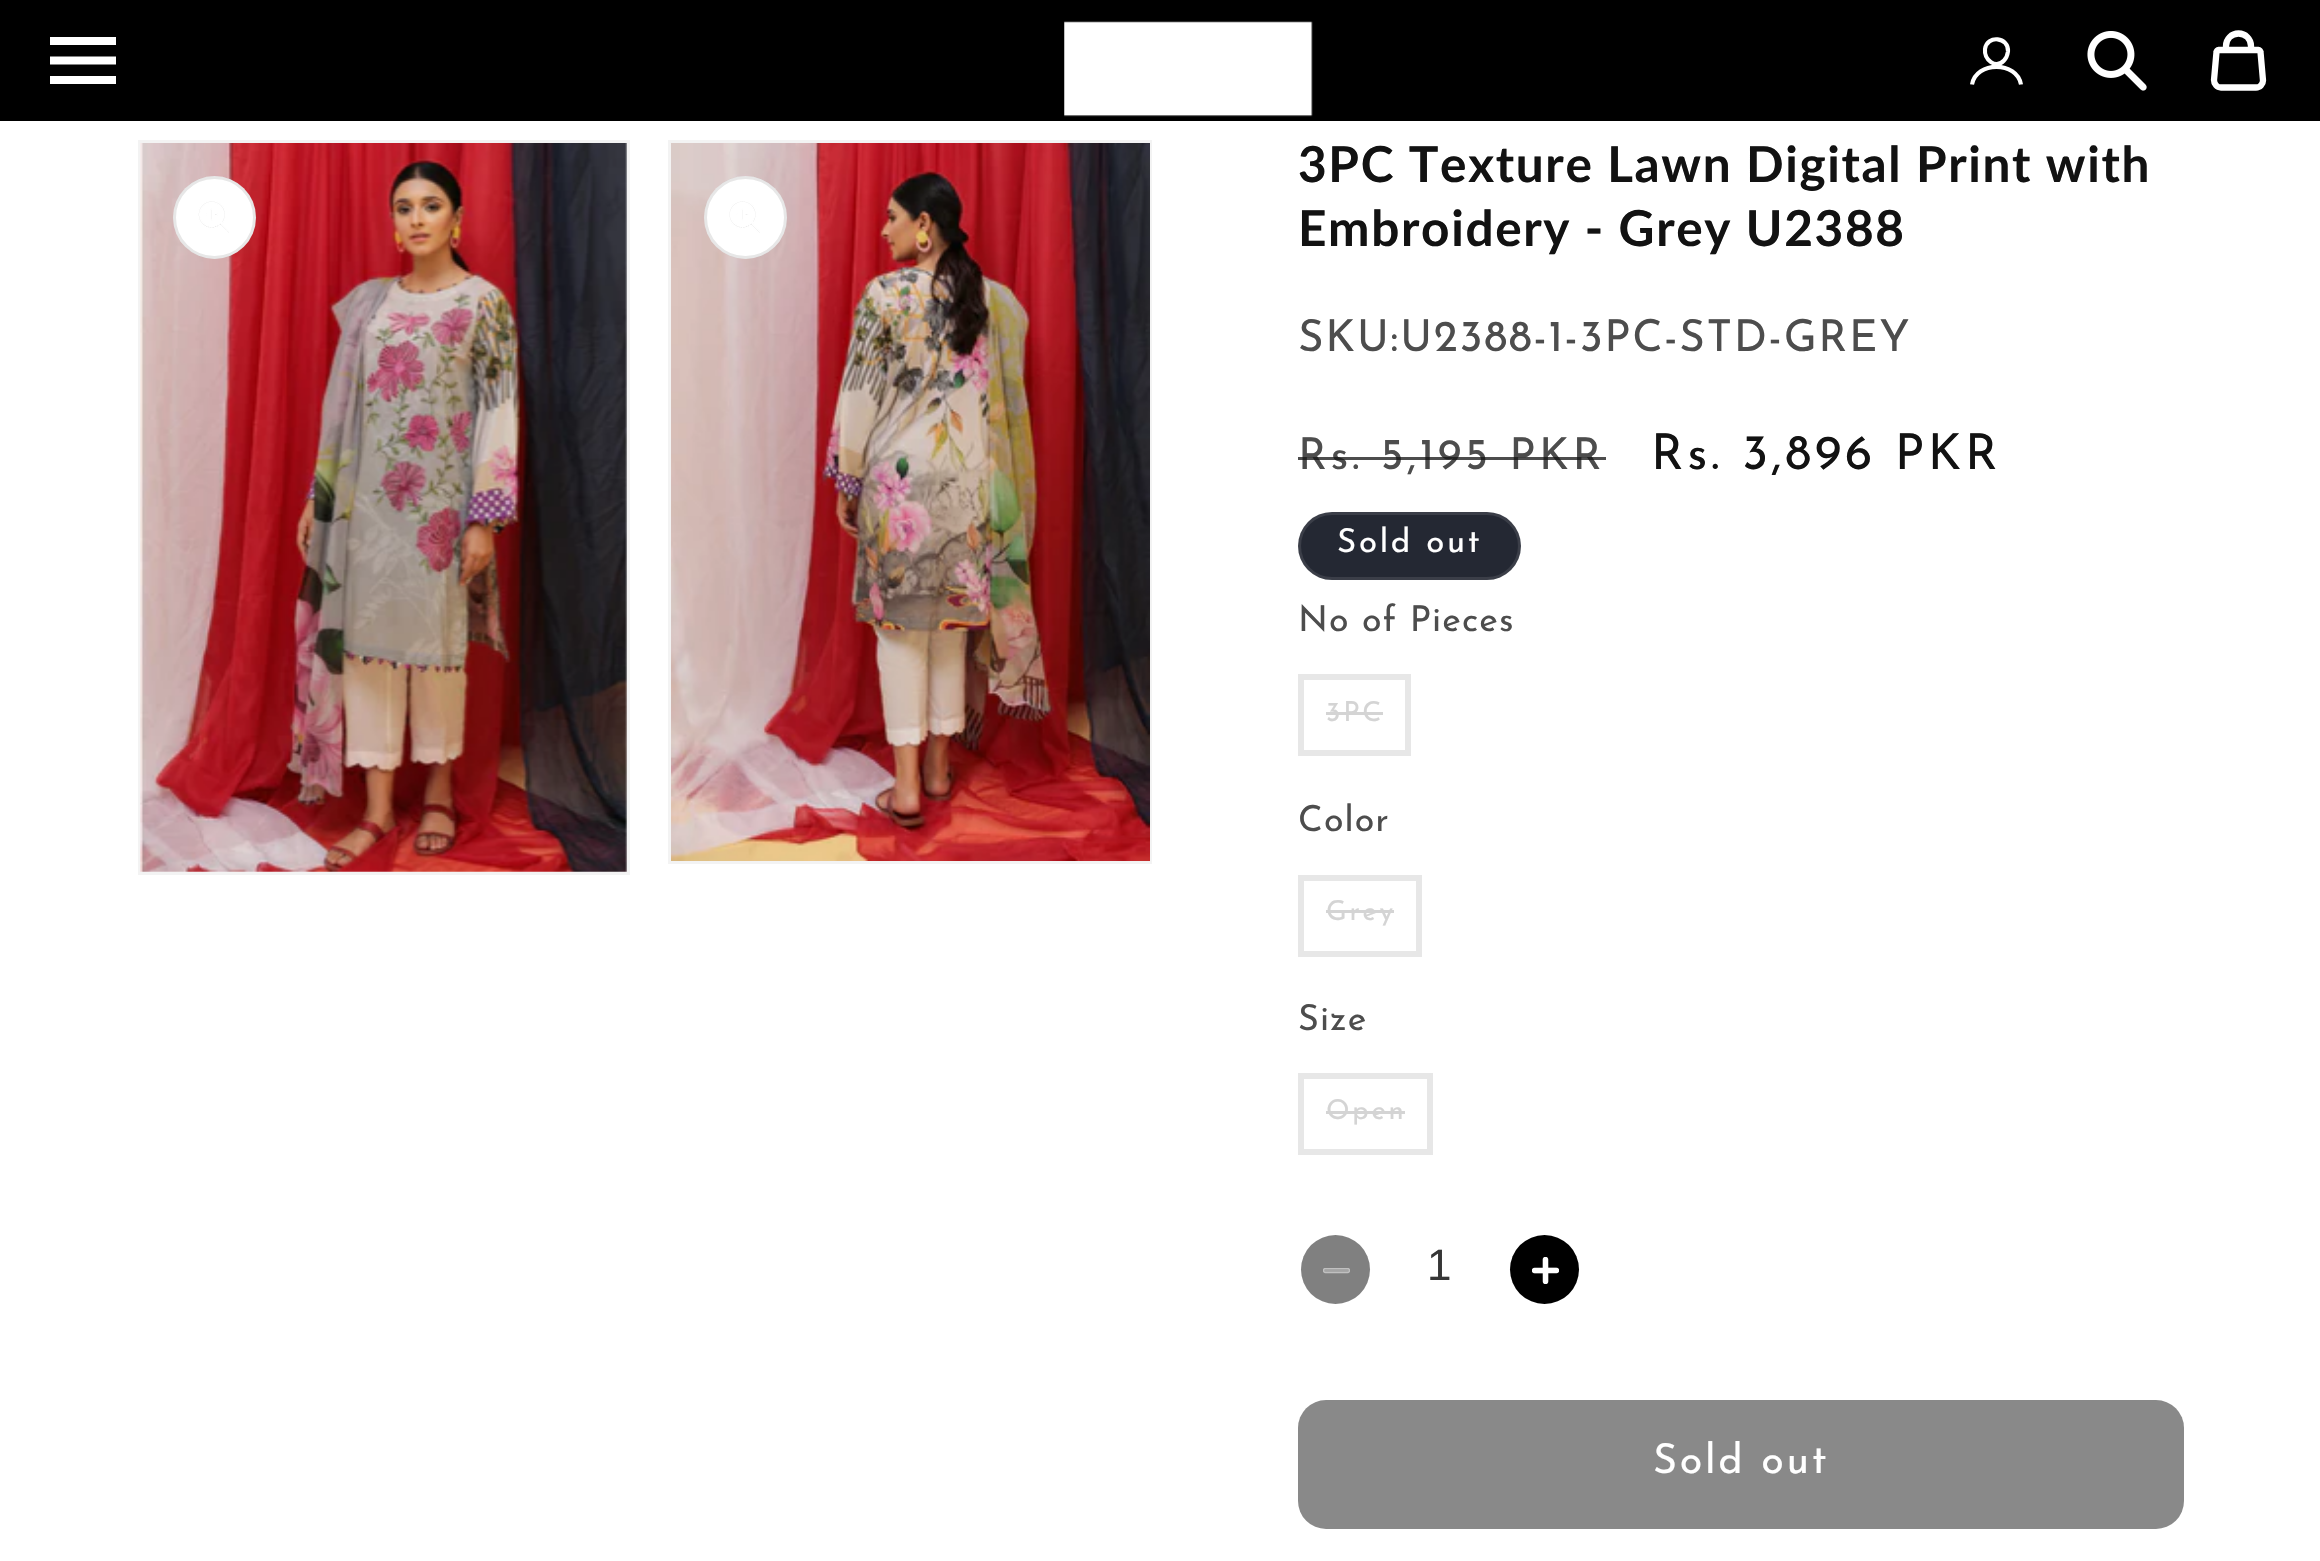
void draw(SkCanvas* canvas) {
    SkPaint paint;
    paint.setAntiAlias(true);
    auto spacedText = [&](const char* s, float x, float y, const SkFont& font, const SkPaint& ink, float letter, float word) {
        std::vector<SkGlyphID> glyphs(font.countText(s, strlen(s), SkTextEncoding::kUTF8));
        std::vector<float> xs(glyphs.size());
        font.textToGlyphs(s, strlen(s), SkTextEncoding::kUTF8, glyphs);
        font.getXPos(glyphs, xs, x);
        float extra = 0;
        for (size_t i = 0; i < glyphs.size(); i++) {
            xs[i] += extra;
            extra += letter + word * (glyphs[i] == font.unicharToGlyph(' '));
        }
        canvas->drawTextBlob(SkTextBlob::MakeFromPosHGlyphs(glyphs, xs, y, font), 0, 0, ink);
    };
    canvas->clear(0xFFFFFFFF);
    paint.setColor(0xFF000000);
    canvas->drawRect(SkRect::MakeXYWH(0, 0, 2320, 121), paint);
    canvas->save();
    canvas->clipRect(SkRect::MakeXYWH(50, 28, 66, 66));
    paint.setStyle(SkPaint::kStroke_Style);
    paint.setStrokeWidth(8.2f);
    paint.setStrokeCap(SkPaint::kSquare_Cap);
    paint.setColor(0xFFFFFFFF);
    canvas->drawPath(SkPathBuilder().moveTo(52, 80).lineTo(113, 80).moveTo(52, 60.5f).lineTo(113, 60.5f).moveTo(52, 41).lineTo(113, 41).detach(), paint);
    canvas->restore();
    canvas->drawImageRect(SkImages::DeferredFromEncodedData(SkData::MakeFromFileName("img1.png")), SkRect::MakeXYWH(1064, 21, 249, 96), SkSamplingOptions());
    paint.setStrokeWidth(4.1f);
    paint.setStrokeCap(SkPaint::kRound_Cap);
    paint.setStrokeJoin(SkPaint::kRound_Join);
    canvas->drawPath(SkPathBuilder().moveTo(2008, 51.5f).cubicTo(2007.5f, 55, 2006.5f, 58, 2004, 60.5f).cubicTo(1995.5f, 69.5f, 1984, 59.5f, 1985, 49).cubicTo(1987, 34.5f, 2009, 37, 2008, 51.5f).close().detach(), paint);
    paint.setStrokeCap(SkPaint::kButt_Cap);
    paint.setStrokeJoin(SkPaint::kMiter_Join);
    canvas->drawPath(SkPathBuilder().moveTo(1972, 84.5f).cubicTo(1976, 61, 2017, 61, 2021, 84.5f).detach(), paint);
    canvas->drawImageRect(SkImages::DeferredFromEncodedData(SkData::MakeFromFileName("img2.png")), SkRect::MakeXYWH(2087, 31, 60, 60), SkSamplingOptions());
    paint.setStrokeWidth(6.3f);
    paint.setStrokeCap(SkPaint::kRound_Cap);
    paint.setStrokeJoin(SkPaint::kRound_Join);
    canvas->drawPath(SkPathBuilder().moveTo(2218.5f, 50).cubicTo(2217.5f, 50, 2216.5f, 51, 2216.5f, 52).lineTo(2214, 80).cubicTo(2214, 84, 2217, 87.5f, 2221, 87.5f).lineTo(2256, 87.5f).cubicTo(2260, 87.5f, 2263, 84, 2263, 80.5f).lineTo(2260.5f, 52).cubicTo(2260.5f, 51, 2259.5f, 50, 2258.5f, 50).close().moveTo(2226, 50).lineTo(2226, 46).cubicTo(2226, 39, 2231.5f, 33.5f, 2238.5f, 33.5f).cubicTo(2245.5f, 33.5f, 2251, 39, 2251, 46).lineTo(2251, 50).detach(), paint);
    paint.setStrokeWidth(3);
    paint.setStrokeCap(SkPaint::kButt_Cap);
    paint.setStrokeJoin(SkPaint::kMiter_Join);
    paint.setColor(0xFFF3F3F3);
    canvas->drawRect(SkRect::MakeXYWH(139.5f, 141.5f, 489, 732), paint);
    canvas->drawImageRect(SkImages::DeferredFromEncodedData(SkData::MakeFromFileName("img3.png")), SkRect::MakeXYWH(140, 143, 487, 729), SkSamplingOptions());
    paint.setStyle(SkPaint::kFill_Style);
    paint.setColor(0xFFFFFFFF);
    canvas->drawCircle(214.5f, 217.5f, 41.5f, paint);
    paint.setStyle(SkPaint::kStroke_Style);
    paint.setColor(0x1A121212);
    canvas->drawCircle(214.5f, 217.5f, 40, paint);
    canvas->drawImageRect(SkImages::DeferredFromEncodedData(SkData::MakeFromFileName("img4.png")), SkRect::MakeXYWH(198, 201, 31, 32), SkSamplingOptions());
    paint.setColor(0xFFF3F3F3);
    canvas->drawRect(SkRect::MakeXYWH(669.5f, 141.5f, 481, 721), paint);
    canvas->drawImageRect(SkImages::DeferredFromEncodedData(SkData::MakeFromFileName("img5.png")), SkRect::MakeXYWH(671, 143, 479, 718), SkSamplingOptions());
    paint.setStyle(SkPaint::kFill_Style);
    paint.setColor(0xFFFFFFFF);
    canvas->drawCircle(745.5f, 217.5f, 41.5f, paint);
    paint.setStyle(SkPaint::kStroke_Style);
    paint.setColor(0x1A121212);
    canvas->drawCircle(745.5f, 217.5f, 40, paint);
    canvas->drawImageRect(SkImages::DeferredFromEncodedData(SkData::MakeFromFileName("img6.png")), SkRect::MakeXYWH(729, 201, 31, 32), SkSamplingOptions());
    SkFont font1(fontMgr->matchFamilyStyle("Lato", SkFontStyle::Bold()), 49.5f);
    font1.setSubpixel(true);
    paint.setStyle(SkPaint::kFill_Style);
    paint.setColor(0xFF121212);
    spacedText("3PC Texture Lawn Digital Print with", 1298, 182, font1, paint, 1.65f, 0);
    spacedText("Embroidery - Grey U2388", 1298, 246, font1, paint, 1.65f, 0);
    SkFont font2(fontMgr->matchFamilyStyle("Josefin Sans", SkFontStyle::Normal()), 44);
    font2.setSubpixel(true);
    paint.setColor(0xFF4D4D4D);
    spacedText("SKU:U2388-1-3PC-STD-GREY", 1298, 351, font2, paint, 1.65f, 0);
    spacedText("Rs. 5,195 PKR", 1298, 469, font2, paint, 3.6f, 0);
    paint.setColor(0xBF121212);
    canvas->drawRect(SkRect::MakeXYWH(1298, 457, 308, 3), paint);
    SkFont font3(fontMgr->matchFamilyStyle("Josefin Sans", SkFontStyle::Normal()), 49.5f);
    font3.setSubpixel(true);
    paint.setColor(0xFF121212);
    spacedText("Rs. 3,896 PKR", 1651, 469, font3, paint, 3.6f, 0);
    paint.setColor(0xFF242833);
    canvas->drawRoundRect(SkRect::MakeXYWH(1298, 512, 223, 68), 34, 34, paint);
    paint.setStyle(SkPaint::kStroke_Style);
    paint.setColor(0x1AFFFFFF);
    canvas->drawRoundRect(SkRect::MakeXYWH(1299.5f, 513.5f, 220, 65), 32.5f, 32.5f, paint);
    SkFont font4(fontMgr->matchFamilyStyle("Josefin Sans", SkFontStyle::Normal()), 33);
    font4.setSubpixel(true);
    paint.setStyle(SkPaint::kFill_Style);
    paint.setColor(0xFFFFFFFF);
    spacedText("Sold out", 1337, 552, font4, paint, 2.75f, 0);
    SkFont font5(fontMgr->matchFamilyStyle("Josefin Sans", SkFontStyle::Normal()), 35.75f);
    font5.setSubpixel(true);
    paint.setColor(0xFF4D4D4D);
    spacedText("No of Pieces", 1298, 631, font5, paint, 1.1f, 0);
    paint.setStyle(SkPaint::kStroke_Style);
    paint.setStrokeWidth(6);
    paint.setColor(0xFFE7E7E7);
    canvas->drawRect(SkRect::MakeXYWH(1301, 677, 107, 76), paint);
    SkFont font6(fontMgr->matchFamilyStyle("Josefin Sans", SkFontStyle::Normal()), 27.5f);
    font6.setSubpixel(true);
    paint.setStyle(SkPaint::kFill_Style);
    paint.setColor(0xFFD4D4D4);
    spacedText("3PC", 1326, 721, font6, paint, 2.75f, 0);
    canvas->drawRect(SkRect::MakeXYWH(1326, 712, 57, 3), paint);
    paint.setColor(0xFF4D4D4D);
    spacedText("Color", 1298, 831, font5, paint, 1.1f, 0);
    paint.setStyle(SkPaint::kStroke_Style);
    paint.setColor(0xFFE7E7E7);
    canvas->drawRect(SkRect::MakeXYWH(1301, 878, 118, 76), paint);
    paint.setStyle(SkPaint::kFill_Style);
    paint.setColor(0xFFD4D4D4);
    spacedText("Grey", 1326, 920, font6, paint, 2.75f, 0);
    canvas->drawRect(SkRect::MakeXYWH(1326, 910, 68, 3), paint);
    paint.setColor(0xFF4D4D4D);
    spacedText("Size", 1298, 1030, font5, paint, 1.1f, 0);
    paint.setStyle(SkPaint::kStroke_Style);
    paint.setColor(0xFFE7E7E7);
    canvas->drawRect(SkRect::MakeXYWH(1301, 1076, 129, 76), paint);
    paint.setStyle(SkPaint::kFill_Style);
    paint.setColor(0xFFD4D4D4);
    spacedText("Open", 1326, 1119, font6, paint, 2.75f, 0);
    canvas->drawRect(SkRect::MakeXYWH(1326, 1111, 79, 3), paint);
    paint.setColor(0xFF808080);
    canvas->drawCircle(1335.5f, 1269.5f, 34.5f, paint);
    canvas->drawImageRect(SkImages::DeferredFromEncodedData(SkData::MakeFromFileName("img7.png")), SkRect::MakeXYWH(1323, 1268, 27, 6), SkSamplingOptions());
    SkFont font7(fontMgr->matchFamilyStyle("Liberation Sans", SkFontStyle::Normal()), 44);
    font7.setSubpixel(true);
    paint.setColor(0xFF363636);
    canvas->drawString("1", 1427, 1280, font7, paint);
    paint.setColor(0xFF000000);
    canvas->drawCircle(1544.5f, 1269.5f, 34.5f, paint);
    canvas->drawImageRect(SkImages::DeferredFromEncodedData(SkData::MakeFromFileName("img8.png")), SkRect::MakeXYWH(1532, 1257, 27, 27), SkSamplingOptions());
    paint.setColor(0xFF898989);
    canvas->drawRoundRect(SkRect::MakeXYWH(1298, 1400, 886, 129), 28, 28, paint);
    SkFont font8(fontMgr->matchFamilyStyle("Josefin Sans", SkFontStyle::Normal()), 41.25f);
    font8.setSubpixel(true);
    paint.setColor(0xFFFFFFFF);
    spacedText("Sold out", 1653, 1473, font8, paint, 2.75f, 0);
}
